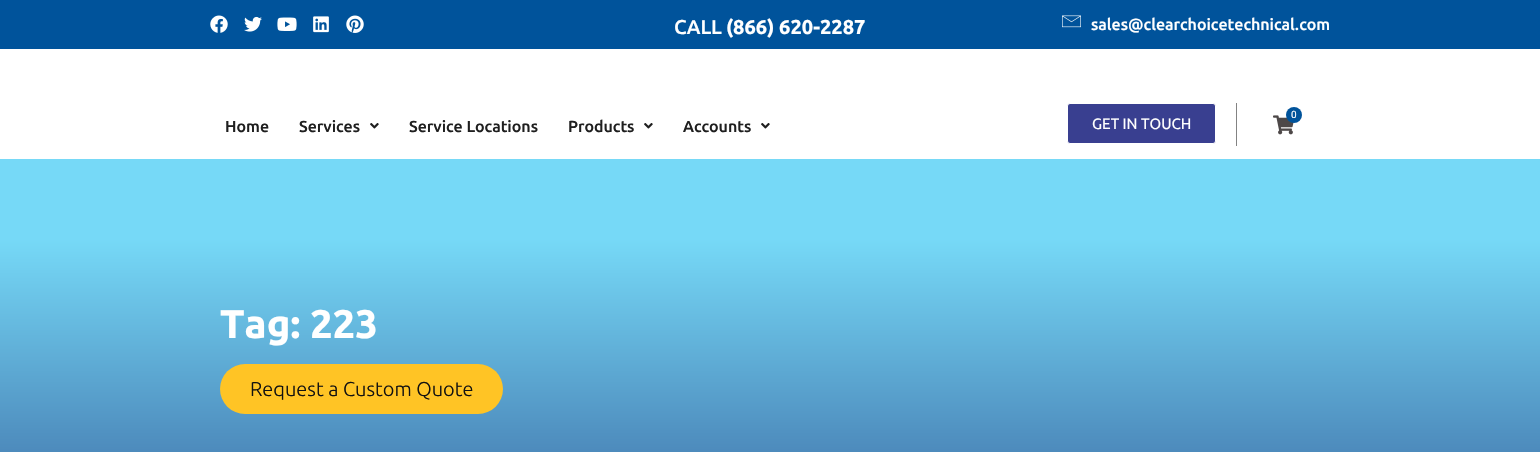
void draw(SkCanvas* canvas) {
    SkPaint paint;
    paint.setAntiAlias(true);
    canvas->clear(0xFFFFFFFF);
    paint.setColor(0xFF00539B);
    canvas->drawRect(SkRect::MakeXYWH(0, 0, 1540, 49), paint);
    canvas->drawImageRect(SkImages::DeferredFromEncodedData(SkData::MakeFromFileName("img1.png")), SkRect::MakeXYWH(210, 15, 18, 18), SkSamplingOptions());
    canvas->drawImageRect(SkImages::DeferredFromEncodedData(SkData::MakeFromFileName("img2.png")), SkRect::MakeXYWH(244, 16, 18, 16), SkSamplingOptions());
    canvas->drawImageRect(SkImages::DeferredFromEncodedData(SkData::MakeFromFileName("img3.png")), SkRect::MakeXYWH(277, 17, 20, 14), SkSamplingOptions());
    canvas->drawImageRect(SkImages::DeferredFromEncodedData(SkData::MakeFromFileName("img4.png")), SkRect::MakeXYWH(313, 16, 16, 17), SkSamplingOptions());
    canvas->drawImageRect(SkImages::DeferredFromEncodedData(SkData::MakeFromFileName("img5.png")), SkRect::MakeXYWH(346, 15, 18, 18), SkSamplingOptions());
    SkFont font1(fontMgr->matchFamilyStyle("Ubuntu", SkFontStyle(500, SkFontStyle::kNormal_Width, SkFontStyle::kUpright_Slant)), 20);
    font1.setSubpixel(true);
    paint.setColor(0xFFFFFFFF);
    canvas->drawString("CALL", 674, 34, font1, paint);
    SkFont font2(fontMgr->matchFamilyStyle("Ubuntu", SkFontStyle::Bold()), 20);
    font2.setSubpixel(true);
    canvas->drawString("(866) 620-2287", 726, 34, font2, paint);
    canvas->drawImageRect(SkImages::DeferredFromEncodedData(SkData::MakeFromFileName("img6.png")), SkRect::MakeXYWH(1062, 15, 19, 13), SkSamplingOptions());
    SkFont font3(fontMgr->matchFamilyStyle("Ubuntu", SkFontStyle(500, SkFontStyle::kNormal_Width, SkFontStyle::kUpright_Slant)), 16);
    font3.setSubpixel(true);
    canvas->drawString("sales@clearchoicetechnical.com", 1091, 30, font3, paint);
    paint.setColor(0xFF838383);
    canvas->drawRect(SkRect::MakeXYWH(1236, 103, 1, 43), paint);
    canvas->drawImageRect(SkImages::DeferredFromEncodedData(SkData::MakeFromFileName("img7.png")), SkRect::MakeXYWH(1273, 115, 21, 20), SkSamplingOptions());
    paint.setColor(0xFF00539B);
    canvas->drawCircle(1294, 115, 8, paint);
    SkFont font4(fontMgr->matchFamilyStyle("Roboto", SkFontStyle::Normal()), 10);
    font4.setSubpixel(true);
    paint.setColor(0xFFFFFFFF);
    canvas->drawString("0", 1291, 118, font4, paint);
    paint.setColor(0xFF1F1F1F);
    canvas->drawString("Home", 225, 132, font3, paint);
    canvas->drawString("Services", 299, 132, font3, paint);
    canvas->drawImageRect(SkImages::DeferredFromEncodedData(SkData::MakeFromFileName("img8.png")), SkRect::MakeXYWH(370, 123, 9, 6), SkSamplingOptions());
    canvas->drawString("Service Locations", 409, 132, font3, paint);
    canvas->drawString("Products", 568, 132, font3, paint);
    canvas->drawImageRect(SkImages::DeferredFromEncodedData(SkData::MakeFromFileName("img8.png")), SkRect::MakeXYWH(644, 123, 9, 6), SkSamplingOptions());
    canvas->drawString("Accounts", 683, 132, font3, paint);
    canvas->drawImageRect(SkImages::DeferredFromEncodedData(SkData::MakeFromFileName("img8.png")), SkRect::MakeXYWH(761, 123, 9, 6), SkSamplingOptions());
    paint.setColor(0xFF393F90);
    canvas->drawRoundRect(SkRect::MakeXYWH(1067.5f, 103.5f, 148, 40), 2.5f, 2.5f, paint);
    paint.setStyle(SkPaint::kStroke_Style);
    paint.setStrokeWidth(1);
    paint.setColor(0xFFFFFFFF);
    canvas->drawRoundRect(SkRect::MakeXYWH(1067.5f, 103.5f, 148, 40), 2.5f, 2.5f, paint);
    SkFont font5(fontMgr->matchFamilyStyle("Ubuntu", SkFontStyle::Normal()), 15);
    font5.setSubpixel(true);
    paint.setStyle(SkPaint::kFill_Style);
    canvas->drawString("GET IN TOUCH", 1092, 129, font5, paint);
    {
        const SkColor colors[] = {0xFF76D9F7, 0xFF4A85B8};
        const float stops[] = {0.2f, 0.77f};
        const SkPoint ends[] = {{770, 159}, {770, 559}};
        paint.setShader(SkGradientShader::MakeLinear(ends, colors, stops, 2, SkTileMode::kClamp));
        paint.setAlpha(255);
    }
    canvas->drawRect(SkRect::MakeXYWH(0, 159, 1540, 293), paint);
    SkFont font6(fontMgr->matchFamilyStyle("Ubuntu", SkFontStyle::Bold()), 40);
    font6.setSubpixel(true);
    paint.setShader(nullptr);
    paint.setColor(0xFFFFFFFF);
    canvas->drawString("Tag: 223", 220, 338, font6, paint);
    paint.setColor(0xFFFFC425);
    canvas->drawRoundRect(SkRect::MakeXYWH(220, 364, 283, 50), 25, 25, paint);
    SkFont font7(fontMgr->matchFamilyStyle("Ubuntu", SkFontStyle(300, SkFontStyle::kNormal_Width, SkFontStyle::kUpright_Slant)), 20);
    font7.setSubpixel(true);
    paint.setColor(0xFF111111);
    canvas->drawString("Request a Custom Quote", 250, 396, font7, paint);
}
